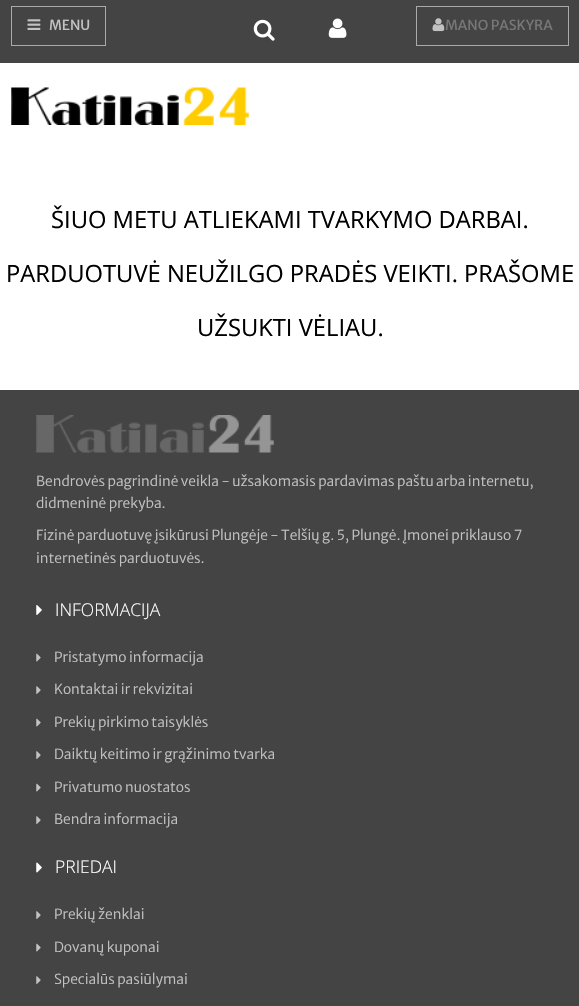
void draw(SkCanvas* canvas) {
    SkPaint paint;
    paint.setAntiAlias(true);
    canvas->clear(0xFFFFFFFF);
    paint.setColor(0xFF444444);
    canvas->drawRect(SkRect::MakeXYWH(0, 0, 579, 63), paint);
    canvas->drawImageRect(SkImages::DeferredFromEncodedData(SkData::MakeFromFileName("img1.png")), SkRect::MakeXYWH(253, 19, 22, 22), SkSamplingOptions());
    canvas->drawImageRect(SkImages::DeferredFromEncodedData(SkData::MakeFromFileName("img2.png")), SkRect::MakeXYWH(11, 87, 238, 38), SkSamplingOptions());
    paint.setStyle(SkPaint::kStroke_Style);
    paint.setStrokeWidth(1);
    paint.setColor(0xFFAAAAAA);
    canvas->drawRect(SkRect::MakeXYWH(11.5f, 6.5f, 94, 39), paint);
    canvas->drawImageRect(SkImages::DeferredFromEncodedData(SkData::MakeFromFileName("img3.png")), SkRect::MakeXYWH(27, 19, 14, 11), SkSamplingOptions());
    SkFont font1(fontMgr->matchFamilyStyle("Merriweather Sans", SkFontStyle::Normal()), 13.75f);
    font1.setSubpixel(true);
    paint.setStyle(SkPaint::kFill_Style);
    paint.setColor(0xFFC2C2C2);
    canvas->drawString("MENU", 49, 30, font1, paint);
    canvas->drawImageRect(SkImages::DeferredFromEncodedData(SkData::MakeFromFileName("img4.png")), SkRect::MakeXYWH(328, 18, 19, 20), SkSamplingOptions());
    paint.setStyle(SkPaint::kStroke_Style);
    paint.setColor(0xFFAAAAAA);
    canvas->drawRect(SkRect::MakeXYWH(416.5f, 6.5f, 152, 39), paint);
    canvas->drawImageRect(SkImages::DeferredFromEncodedData(SkData::MakeFromFileName("img5.png")), SkRect::MakeXYWH(432, 18, 13, 14), SkSamplingOptions());
    paint.setStyle(SkPaint::kFill_Style);
    paint.setColor(0xFF777777);
    canvas->drawString("MANO PASKYRA", 445, 30, font1, paint);
    SkFont font2(fontMgr->matchFamilyStyle("Open Sans", SkFontStyle::Normal()), 23.75f);
    font2.setSubpixel(true);
    paint.setColor(0xFF000000);
    canvas->drawString("ŠIUO METU ATLIEKAMI TVARKYMO DARBAI.", 51, 228, font2, paint);
    canvas->drawString("PARDUOTUVĖ NEUŽILGO PRADĖS VEIKTI. PRAŠOME", 6, 282, font2, paint);
    canvas->drawString("UŽSUKTI VĖLIAU.", 197, 336, font2, paint);
    paint.setColor(0xFF444444);
    canvas->drawRect(SkRect::MakeXYWH(0, 390, 579, 616), paint);
    canvas->drawImageRect(SkImages::DeferredFromEncodedData(SkData::MakeFromFileName("img6.png")), SkRect::MakeXYWH(36, 415, 238, 38), SkSamplingOptions());
    SkFont font3(fontMgr->matchFamilyStyle("Merriweather Sans", SkFontStyle(300, SkFontStyle::kNormal_Width, SkFontStyle::kUpright_Slant)), 13.75f);
    font3.setSubpixel(true);
    paint.setColor(0xFFC2C2C2);
    canvas->drawString("Bendrovės pagrindinė veikla - užsakomasis pardavimas paštu arba internetu,", 36, 486, font3, paint);
    canvas->drawString("didmeninė prekyba.", 36, 508, font3, paint);
    canvas->drawString("Fizinė parduotuvę įsikūrusi Plungėje - Telšių g. 5, Plungė. Įmonei priklauso 7", 36, 540, font3, paint);
    canvas->drawString("internetinės parduotuvės.", 36, 563, font3, paint);
    canvas->drawImageRect(SkImages::DeferredFromEncodedData(SkData::MakeFromFileName("img7.png")), SkRect::MakeXYWH(36, 605, 6, 10), SkSamplingOptions());
    SkFont font4(fontMgr->matchFamilyStyle("Open Sans", SkFontStyle(300, SkFontStyle::kNormal_Width, SkFontStyle::kUpright_Slant)), 17.5f);
    font4.setSubpixel(true);
    paint.setColor(0xFFFFFFFF);
    canvas->drawString("INFORMACIJA", 55, 616, font4, paint);
    canvas->drawImageRect(SkImages::DeferredFromEncodedData(SkData::MakeFromFileName("img8.png")), SkRect::MakeXYWH(36, 653, 5, 9), SkSamplingOptions());
    paint.setColor(0xFFC2C2C2);
    canvas->drawString("Pristatymo informacija", 54, 662, font3, paint);
    canvas->drawImageRect(SkImages::DeferredFromEncodedData(SkData::MakeFromFileName("img9.png")), SkRect::MakeXYWH(36, 686, 5, 8), SkSamplingOptions());
    canvas->drawString("Kontaktai ir rekvizitai", 54, 694, font3, paint);
    canvas->drawImageRect(SkImages::DeferredFromEncodedData(SkData::MakeFromFileName("img8.png")), SkRect::MakeXYWH(36, 718, 5, 9), SkSamplingOptions());
    canvas->drawString("Prekių pirkimo taisyklės", 54, 727, font3, paint);
    canvas->drawImageRect(SkImages::DeferredFromEncodedData(SkData::MakeFromFileName("img9.png")), SkRect::MakeXYWH(36, 751, 5, 8), SkSamplingOptions());
    canvas->drawString("Daiktų keitimo ir grąžinimo tvarka", 54, 759, font3, paint);
    canvas->drawImageRect(SkImages::DeferredFromEncodedData(SkData::MakeFromFileName("img8.png")), SkRect::MakeXYWH(36, 783, 5, 9), SkSamplingOptions());
    canvas->drawString("Privatumo nuostatos", 54, 792, font3, paint);
    canvas->drawImageRect(SkImages::DeferredFromEncodedData(SkData::MakeFromFileName("img9.png")), SkRect::MakeXYWH(36, 816, 5, 8), SkSamplingOptions());
    canvas->drawString("Bendra informacija", 54, 824, font3, paint);
    canvas->drawImageRect(SkImages::DeferredFromEncodedData(SkData::MakeFromFileName("img10.png")), SkRect::MakeXYWH(36, 862, 6, 11), SkSamplingOptions());
    paint.setColor(0xFFFFFFFF);
    canvas->drawString("PRIEDAI", 55, 873, font4, paint);
    canvas->drawImageRect(SkImages::DeferredFromEncodedData(SkData::MakeFromFileName("img9.png")), SkRect::MakeXYWH(36, 911, 5, 8), SkSamplingOptions());
    paint.setColor(0xFFC2C2C2);
    canvas->drawString("Prekių ženklai", 54, 919, font3, paint);
    canvas->drawImageRect(SkImages::DeferredFromEncodedData(SkData::MakeFromFileName("img8.png")), SkRect::MakeXYWH(36, 943, 5, 9), SkSamplingOptions());
    canvas->drawString("Dovanų kuponai", 54, 952, font3, paint);
    canvas->drawImageRect(SkImages::DeferredFromEncodedData(SkData::MakeFromFileName("img9.png")), SkRect::MakeXYWH(36, 976, 5, 8), SkSamplingOptions());
    canvas->drawString("Specialūs pasiūlymai", 54, 984, font3, paint);
}
